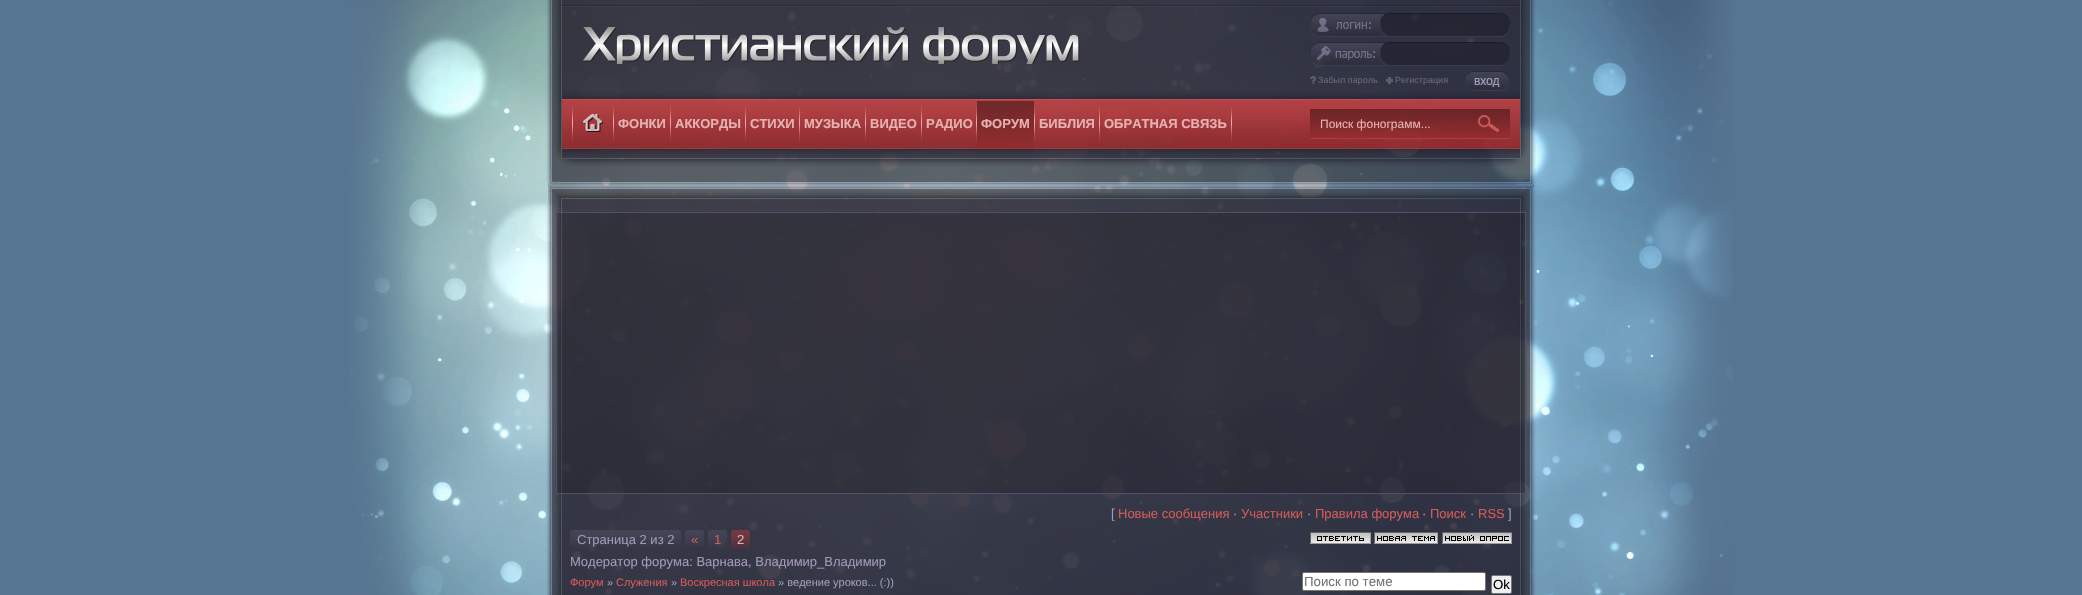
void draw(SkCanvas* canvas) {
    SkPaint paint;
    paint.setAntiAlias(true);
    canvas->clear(0xFF567591);
    canvas->drawImageRect(SkImages::DeferredFromEncodedData(SkData::MakeFromFileName("img1.png")), SkRect::MakeXYWH(349, 0, 1384, 595), SkSamplingOptions());
    canvas->drawImageRect(SkImages::DeferredFromEncodedData(SkData::MakeFromFileName("img2.png")), SkRect::MakeXYWH(546, 0, 990, 99), SkSamplingOptions());
    canvas->drawImageRect(SkImages::DeferredFromEncodedData(SkData::MakeFromFileName("img3.png")), SkRect::MakeXYWH(562, 5, 958, 2), SkSamplingOptions());
    canvas->drawImageRect(SkImages::DeferredFromEncodedData(SkData::MakeFromFileName("img4.png")), SkRect::MakeXYWH(583, 27, 326, 37), SkSamplingOptions());
    canvas->drawImageRect(SkImages::DeferredFromEncodedData(SkData::MakeFromFileName("img5.png")), SkRect::MakeXYWH(923, 27, 157, 37), SkSamplingOptions());
    canvas->drawImageRect(SkImages::DeferredFromEncodedData(SkData::MakeFromFileName("img6.png")), SkRect::MakeXYWH(1310, 13, 200, 24), SkSamplingOptions());
    canvas->drawImageRect(SkImages::DeferredFromEncodedData(SkData::MakeFromFileName("img7.png")), SkRect::MakeXYWH(1310, 42, 200, 24), SkSamplingOptions());
    canvas->drawImageRect(SkImages::DeferredFromEncodedData(SkData::MakeFromFileName("img8.png")), SkRect::MakeXYWH(1310, 76, 6, 8), SkSamplingOptions());
    SkFont font1(fontMgr->matchFamilyStyle("Liberation Sans", SkFontStyle::Normal()), 9);
    font1.setSubpixel(true);
    paint.setColor(0xFF6B667E);
    canvas->drawString("Забыл пароль", 1318, 83, font1, paint);
    canvas->drawImageRect(SkImages::DeferredFromEncodedData(SkData::MakeFromFileName("img9.png")), SkRect::MakeXYWH(1386, 77, 7, 7), SkSamplingOptions());
    canvas->drawString("Регистрация", 1395, 83, font1, paint);
    canvas->drawImageRect(SkImages::DeferredFromEncodedData(SkData::MakeFromFileName("img10.png")), SkRect::MakeXYWH(1464, 71, 46, 20), SkSamplingOptions());
    canvas->drawImageRect(SkImages::DeferredFromEncodedData(SkData::MakeFromFileName("img11.png")), SkRect::MakeXYWH(546, 99, 990, 70), SkSamplingOptions());
    canvas->drawImageRect(SkImages::DeferredFromEncodedData(SkData::MakeFromFileName("img12.png")), SkRect::MakeXYWH(583, 114, 20, 18), SkSamplingOptions());
    canvas->drawImageRect(SkImages::DeferredFromEncodedData(SkData::MakeFromFileName("img13.png")), SkRect::MakeXYWH(613, 105, 1, 38), SkSamplingOptions());
    canvas->drawImageRect(SkImages::DeferredFromEncodedData(SkData::MakeFromFileName("img14.png")), SkRect::MakeXYWH(572, 105, 1, 38), SkSamplingOptions());
    canvas->drawImageRect(SkImages::DeferredFromEncodedData(SkData::MakeFromFileName("img15.png")), SkRect::MakeXYWH(670, 105, 1, 38), SkSamplingOptions());
    SkFont font2(fontMgr->matchFamilyStyle("Liberation Sans", SkFontStyle::Bold()), 13);
    font2.setSubpixel(true);
    paint.setColor(0xFFE6B1B1);
    canvas->drawString("ФОНКИ", 618, 128, font2, paint);
    canvas->drawImageRect(SkImages::DeferredFromEncodedData(SkData::MakeFromFileName("img16.png")), SkRect::MakeXYWH(745, 106, 1, 37), SkSamplingOptions());
    canvas->drawString("АККОРДЫ", 675, 128, font2, paint);
    canvas->drawImageRect(SkImages::DeferredFromEncodedData(SkData::MakeFromFileName("img17.png")), SkRect::MakeXYWH(799, 105, 1, 38), SkSamplingOptions());
    canvas->drawString("СТИХИ", 750, 128, font2, paint);
    canvas->drawImageRect(SkImages::DeferredFromEncodedData(SkData::MakeFromFileName("img18.png")), SkRect::MakeXYWH(865, 105, 1, 38), SkSamplingOptions());
    canvas->drawString("МУЗЫКА", 804, 128, font2, paint);
    canvas->drawImageRect(SkImages::DeferredFromEncodedData(SkData::MakeFromFileName("img19.png")), SkRect::MakeXYWH(921, 105, 1, 38), SkSamplingOptions());
    canvas->drawString("ВИДЕО", 870, 128, font2, paint);
    canvas->drawImageRect(SkImages::DeferredFromEncodedData(SkData::MakeFromFileName("img20.png")), SkRect::MakeXYWH(976, 105, 1, 38), SkSamplingOptions());
    canvas->drawString("РАДИО", 926, 128, font2, paint);
    canvas->drawImageRect(SkImages::DeferredFromEncodedData(SkData::MakeFromFileName("img21.png")), SkRect::MakeXYWH(1034, 105, 1, 38), SkSamplingOptions());
    canvas->drawImageRect(SkImages::DeferredFromEncodedData(SkData::MakeFromFileName("img22.png")), SkRect::MakeXYWH(977, 101, 57, 48), SkSamplingOptions());
    canvas->drawString("ФОРУМ", 981, 128, font2, paint);
    canvas->drawImageRect(SkImages::DeferredFromEncodedData(SkData::MakeFromFileName("img23.png")), SkRect::MakeXYWH(1099, 105, 1, 38), SkSamplingOptions());
    canvas->drawString("БИБЛИЯ", 1039, 128, font2, paint);
    canvas->drawImageRect(SkImages::DeferredFromEncodedData(SkData::MakeFromFileName("img24.png")), SkRect::MakeXYWH(1231, 105, 1, 38), SkSamplingOptions());
    canvas->drawString("ОБРАТНАЯ СВЯЗЬ", 1104, 128, font2, paint);
    canvas->drawImageRect(SkImages::DeferredFromEncodedData(SkData::MakeFromFileName("img25.png")), SkRect::MakeXYWH(1310, 109, 200, 30), SkSamplingOptions());
    SkFont font3(fontMgr->matchFamilyStyle("Liberation Sans", SkFontStyle::Normal()), 12);
    font3.setSubpixel(true);
    canvas->drawString("Поиск фонограмм...", 1320, 128, font3, paint);
    canvas->drawImageRect(SkImages::DeferredFromEncodedData(SkData::MakeFromFileName("img26.png")), SkRect::MakeXYWH(546, 169, 993, 19), SkSamplingOptions());
    canvas->drawImageRect(SkImages::DeferredFromEncodedData(SkData::MakeFromFileName("img27.png")), SkRect::MakeXYWH(546, 183, 990, 29), SkSamplingOptions());
    canvas->drawImageRect(SkImages::DeferredFromEncodedData(SkData::MakeFromFileName("img28.png")), SkRect::MakeXYWH(546, 212, 990, 383), SkSamplingOptions());
    paint.setColor(0x4D17171E);
    canvas->drawRect(SkRect::MakeXYWH(556.5f, 212.5f, 969, 281), paint);
    paint.setStyle(SkPaint::kStroke_Style);
    paint.setStrokeWidth(1);
    paint.setColor(0xFF554D69);
    canvas->drawRect(SkRect::MakeXYWH(556.5f, 212.5f, 969, 281), paint);
    SkFont font4(fontMgr->matchFamilyStyle("Liberation Sans", SkFontStyle::Normal()), 13);
    font4.setSubpixel(true);
    paint.setStyle(SkPaint::kFill_Style);
    paint.setColor(0xFFA199B8);
    canvas->drawString("[", 1111, 518, font4, paint);
    paint.setColor(0xFFD45959);
    canvas->drawString("Новые сообщения", 1118, 518, font4, paint);
    paint.setColor(0xFFA199B8);
    canvas->drawString("·", 1233, 518, font4, paint);
    paint.setColor(0xFFD45959);
    canvas->drawString("Участники", 1241, 518, font4, paint);
    paint.setColor(0xFFA199B8);
    canvas->drawString("·", 1307, 518, font4, paint);
    paint.setColor(0xFFD45959);
    canvas->drawString("Правила форума", 1315, 518, font4, paint);
    paint.setColor(0xFFA199B8);
    canvas->drawString("·", 1422, 518, font4, paint);
    paint.setColor(0xFFD45959);
    canvas->drawString("Поиск", 1430, 518, font4, paint);
    paint.setColor(0xFFA199B8);
    canvas->drawString("·", 1470, 518, font4, paint);
    paint.setColor(0xFFD45959);
    canvas->drawString("RSS", 1478, 518, font4, paint);
    paint.setColor(0xFFA199B8);
    canvas->drawString("]", 1508, 518, font4, paint);
    canvas->drawImageRect(SkImages::DeferredFromEncodedData(SkData::MakeFromFileName("img29.png")), SkRect::MakeXYWH(570, 530, 111, 19), SkSamplingOptions());
    canvas->drawString("Страница 2 из 2", 577, 544, font4, paint);
    canvas->drawImageRect(SkImages::DeferredFromEncodedData(SkData::MakeFromFileName("img30.png")), SkRect::MakeXYWH(685, 530, 19, 16), SkSamplingOptions());
    paint.setColor(0xFFD45959);
    canvas->drawString("«", 691, 544, font4, paint);
    canvas->drawImageRect(SkImages::DeferredFromEncodedData(SkData::MakeFromFileName("img31.png")), SkRect::MakeXYWH(708, 530, 19, 18), SkSamplingOptions());
    canvas->drawString("1", 714, 544, font4, paint);
    canvas->drawImageRect(SkImages::DeferredFromEncodedData(SkData::MakeFromFileName("img32.png")), SkRect::MakeXYWH(731, 530, 19, 19), SkSamplingOptions());
    paint.setColor(0xFFE6B1B1);
    canvas->drawString("2", 737, 544, font4, paint);
    canvas->drawImageRect(SkImages::DeferredFromEncodedData(SkData::MakeFromFileName("img33.png")), SkRect::MakeXYWH(1310, 532, 61, 12), SkSamplingOptions());
    canvas->drawImageRect(SkImages::DeferredFromEncodedData(SkData::MakeFromFileName("img34.png")), SkRect::MakeXYWH(1374, 532, 64, 12), SkSamplingOptions());
    canvas->drawImageRect(SkImages::DeferredFromEncodedData(SkData::MakeFromFileName("img35.png")), SkRect::MakeXYWH(1442, 532, 70, 12), SkSamplingOptions());
    paint.setColor(0xFFA199B8);
    canvas->drawString("Модератор форума: Варнава, Владимир_Владимир", 570, 566, font4, paint);
    SkFont font5(fontMgr->matchFamilyStyle("Liberation Sans", SkFontStyle::Normal()), 11);
    font5.setSubpixel(true);
    paint.setColor(0xFFD45959);
    canvas->drawString("Форум", 570, 586, font5, paint);
    paint.setColor(0xFFA199B8);
    canvas->drawString("»", 607, 586, font5, paint);
    paint.setColor(0xFFD45959);
    canvas->drawString("Служения", 616, 586, font5, paint);
    paint.setColor(0xFFA199B8);
    canvas->drawString("»", 671, 586, font5, paint);
    paint.setColor(0xFFD45959);
    canvas->drawString("Воскресная школа", 680, 586, font5, paint);
    paint.setColor(0xFFA199B8);
    canvas->drawString("» ведение уроков... (:))", 778, 586, font5, paint);
    paint.setColor(0xFFFFFFFF);
    canvas->drawRoundRect(SkRect::MakeXYWH(1302.5f, 572.5f, 183, 18), 1.5f, 1.5f, paint);
    paint.setStyle(SkPaint::kStroke_Style);
    paint.setColor(0xFF767676);
    canvas->drawRoundRect(SkRect::MakeXYWH(1302.5f, 572.5f, 183, 18), 1.5f, 1.5f, paint);
    SkFont font6(fontMgr->matchFamilyStyle("Liberation Sans", SkFontStyle::Normal()), 13.25f);
    font6.setSubpixel(true);
    paint.setStyle(SkPaint::kFill_Style);
    paint.setColor(0xFF757575);
    canvas->drawString("Поиск по теме", 1304, 586, font6, paint);
    paint.setColor(0xFFEFEFEF);
    canvas->drawRoundRect(SkRect::MakeXYWH(1491.5f, 575.5f, 20, 18), 1.5f, 1.5f, paint);
    paint.setStyle(SkPaint::kStroke_Style);
    paint.setColor(0xFF767676);
    canvas->drawRoundRect(SkRect::MakeXYWH(1491.5f, 575.5f, 20, 18), 1.5f, 1.5f, paint);
    paint.setStyle(SkPaint::kFill_Style);
    paint.setColor(0xFF000000);
    canvas->drawString("Ok", 1493, 589, font6, paint);
}
